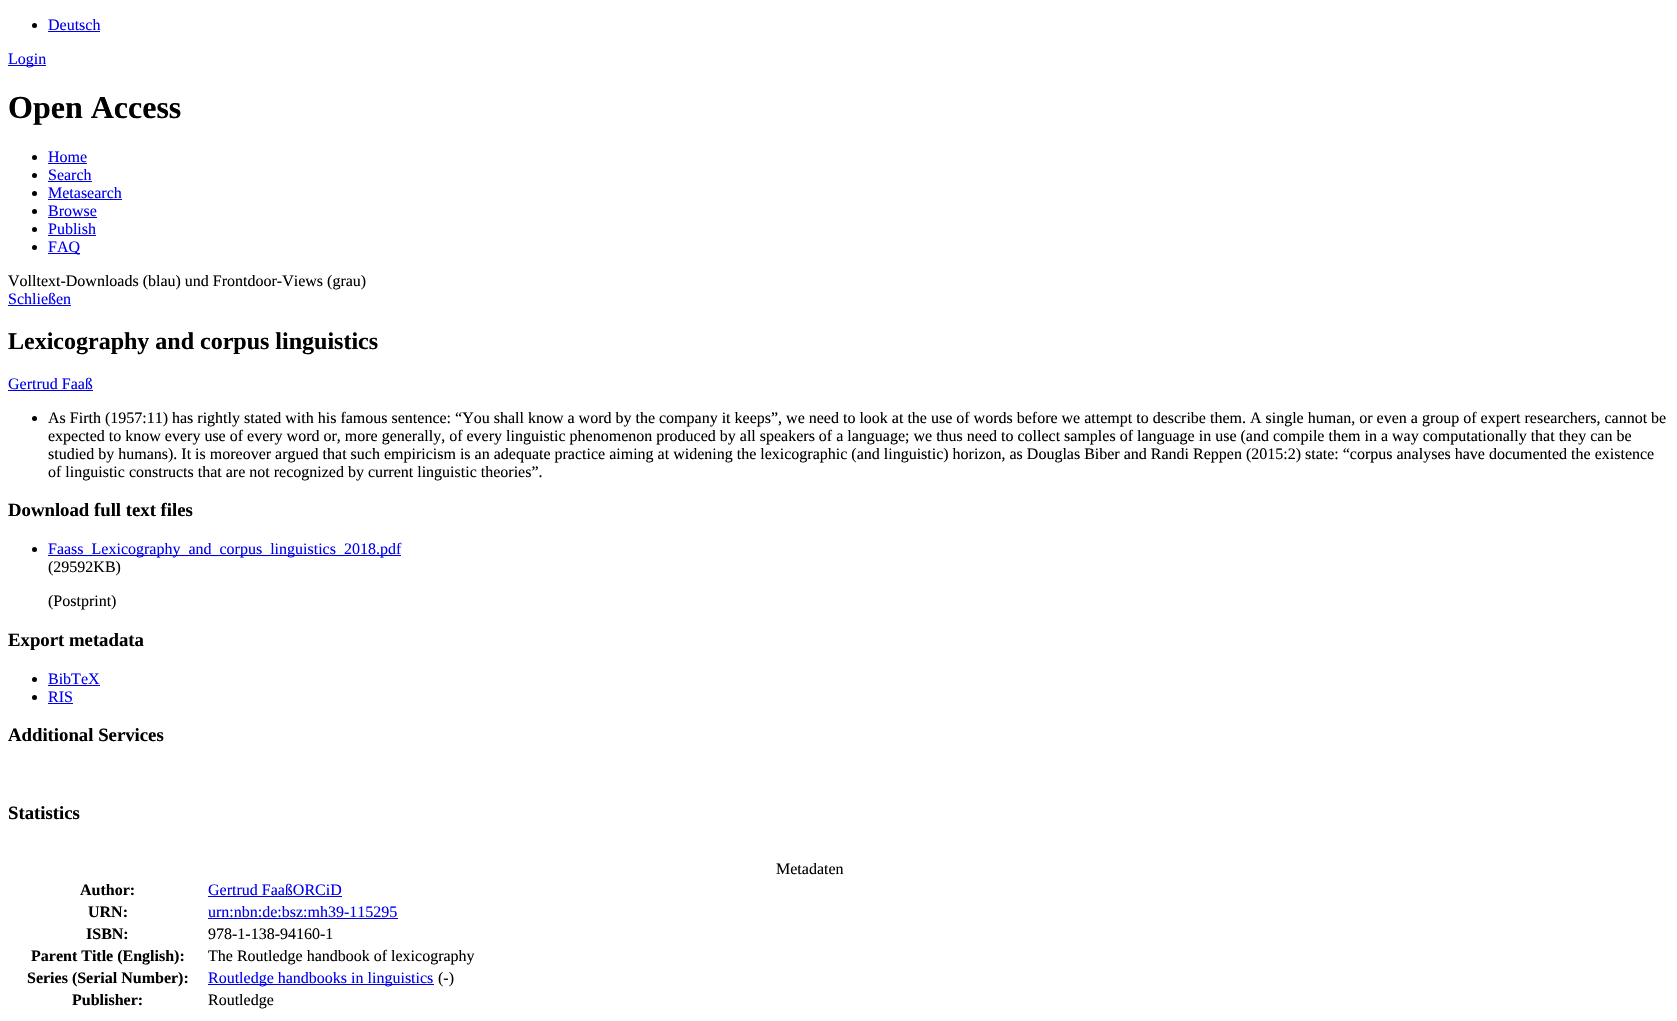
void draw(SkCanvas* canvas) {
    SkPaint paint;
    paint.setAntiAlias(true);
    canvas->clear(0xFFFFFFFF);
    paint.setColor(0xFF000000);
    canvas->drawCircle(34.5f, 25.5f, 2.5f, paint);
    SkFont font1(fontMgr->matchFamilyStyle("Liberation Serif", SkFontStyle::Normal()), 16);
    font1.setSubpixel(true);
    paint.setColor(0xFF0000EE);
    canvas->drawString("Deutsch", 48, 30, font1, paint);
    canvas->drawRect(SkRect::MakeXYWH(48, 31, 52, 1), paint);
    canvas->drawRect(SkRect::MakeXYWH(8, 65, 38, 1), paint);
    canvas->drawString("Login", 8, 64, font1, paint);
    SkFont font2(fontMgr->matchFamilyStyle("Liberation Serif", SkFontStyle::Bold()), 32);
    font2.setSubpixel(true);
    paint.setColor(0xFF000000);
    canvas->drawString("Open Access", 8, 118, font2, paint);
    canvas->drawCircle(34.5f, 157.5f, 2.5f, paint);
    paint.setColor(0xFF0000EE);
    canvas->drawString("Home", 48, 162, font1, paint);
    canvas->drawRect(SkRect::MakeXYWH(48, 163, 39, 1), paint);
    paint.setColor(0xFF000000);
    canvas->drawCircle(34.5f, 175.5f, 2.5f, paint);
    paint.setColor(0xFF0000EE);
    canvas->drawString("Search", 48, 180, font1, paint);
    canvas->drawRect(SkRect::MakeXYWH(48, 181, 44, 1), paint);
    paint.setColor(0xFF000000);
    canvas->drawCircle(34.5f, 193.5f, 2.5f, paint);
    paint.setColor(0xFF0000EE);
    canvas->drawString("Metasearch", 48, 198, font1, paint);
    canvas->drawRect(SkRect::MakeXYWH(48, 199, 74, 1), paint);
    paint.setColor(0xFF000000);
    canvas->drawCircle(34.5f, 211.5f, 2.5f, paint);
    paint.setColor(0xFF0000EE);
    canvas->drawString("Browse", 48, 216, font1, paint);
    canvas->drawRect(SkRect::MakeXYWH(48, 217, 49, 1), paint);
    paint.setColor(0xFF000000);
    canvas->drawCircle(34.5f, 229.5f, 2.5f, paint);
    paint.setColor(0xFF0000EE);
    canvas->drawString("Publish", 48, 234, font1, paint);
    canvas->drawRect(SkRect::MakeXYWH(48, 235, 48, 1), paint);
    paint.setColor(0xFF000000);
    canvas->drawCircle(34.5f, 247.5f, 2.5f, paint);
    paint.setColor(0xFF0000EE);
    canvas->drawRect(SkRect::MakeXYWH(48, 253, 32, 1), paint);
    canvas->drawString("FAQ", 48, 252, font1, paint);
    paint.setColor(0xFF000000);
    canvas->drawString("Volltext-Downloads (blau) und Frontdoor-Views (grau)", 8, 286, font1, paint);
    paint.setColor(0xFF0000EE);
    canvas->drawString("Schließen", 8, 304, font1, paint);
    canvas->drawRect(SkRect::MakeXYWH(8, 305, 63, 1), paint);
    SkFont font3(fontMgr->matchFamilyStyle("Liberation Serif", SkFontStyle::Bold()), 24);
    font3.setSubpixel(true);
    paint.setColor(0xFF000000);
    canvas->drawString("Lexicography and corpus linguistics", 8, 349, font3, paint);
    paint.setColor(0xFF0000EE);
    canvas->drawString("Gertrud Faaß", 8, 389, font1, paint);
    canvas->drawRect(SkRect::MakeXYWH(8, 390, 85, 1), paint);
    paint.setColor(0xFF000000);
    canvas->drawCircle(34.5f, 418.5f, 2.5f, paint);
    canvas->drawString("As Firth (1957:11) has rightly stated with his famous sentence: “You shall know a word by the company it keeps”, we need to look at the use of words before we attempt to describe them. A single human, or even a group of expert researchers, cannot be", 48, 423, font1, paint);
    canvas->drawString("expected to know every use of every word or, more generally, of every linguistic phenomenon produced by all speakers of a language; we thus need to collect samples of language in use (and compile them in a way computationally that they can be", 48, 441, font1, paint);
    canvas->drawString("studied by humans). It is moreover argued that such empiricism is an adequate practice aiming at widening the lexicographic (and linguistic) horizon, as Douglas Biber and Randi Reppen (2015:2) state: “corpus analyses have documented the existence", 48, 459, font1, paint);
    canvas->drawString("of linguistic constructs that are not recognized by current linguistic theories”.", 48, 477, font1, paint);
    SkFont font4(fontMgr->matchFamilyStyle("Liberation Serif", SkFontStyle::Bold()), 18.75f);
    font4.setSubpixel(true);
    canvas->drawString("Download full text files", 8, 516, font4, paint);
    canvas->drawCircle(34.5f, 549.5f, 2.5f, paint);
    paint.setColor(0xFF0000EE);
    canvas->drawRect(SkRect::MakeXYWH(48, 555, 353, 1), paint);
    canvas->drawString("Faass_Lexicography_and_corpus_linguistics_2018.pdf", 48, 554, font1, paint);
    paint.setColor(0xFF000000);
    canvas->drawString("(29592KB)", 48, 572, font1, paint);
    canvas->drawString("(Postprint)", 48, 606, font1, paint);
    canvas->drawString("Export metadata", 8, 646, font4, paint);
    canvas->drawCircle(34.5f, 679.5f, 2.5f, paint);
    paint.setColor(0xFF0000EE);
    canvas->drawString("BibTeX", 48, 684, font1, paint);
    canvas->drawRect(SkRect::MakeXYWH(48, 685, 52, 1), paint);
    paint.setColor(0xFF000000);
    canvas->drawCircle(34.5f, 697.5f, 2.5f, paint);
    paint.setColor(0xFF0000EE);
    canvas->drawString("RIS", 48, 702, font1, paint);
    canvas->drawRect(SkRect::MakeXYWH(48, 703, 25, 1), paint);
    paint.setColor(0xFF000000);
    canvas->drawString("Additional Services", 8, 741, font4, paint);
    canvas->drawString("Statistics", 8, 819, font4, paint);
    canvas->drawString("Metadaten", 776, 874, font1, paint);
    SkFont font5(fontMgr->matchFamilyStyle("Liberation Serif", SkFontStyle::Bold()), 16);
    font5.setSubpixel(true);
    canvas->drawString("Author:", 80, 895, font5, paint);
    paint.setColor(0xFF0000EE);
    canvas->drawString("Gertrud FaaßORCiD", 208, 895, font1, paint);
    canvas->drawRect(SkRect::MakeXYWH(208, 896, 134, 1), paint);
    paint.setColor(0xFF000000);
    canvas->drawString("URN:", 88, 917, font5, paint);
    paint.setColor(0xFF0000EE);
    canvas->drawString("urn:nbn:de:bsz:mh39-115295", 208, 917, font1, paint);
    canvas->drawRect(SkRect::MakeXYWH(208, 918, 190, 1), paint);
    paint.setColor(0xFF000000);
    canvas->drawString("ISBN:", 86, 939, font5, paint);
    canvas->drawString("978-1-138-94160-1", 208, 939, font1, paint);
    canvas->drawString("Parent Title (English):", 31, 961, font5, paint);
    canvas->drawString("The Routledge handbook of lexicography", 208, 961, font1, paint);
    canvas->drawString("Series (Serial Number):", 27, 983, font5, paint);
    paint.setColor(0xFF0000EE);
    canvas->drawRect(SkRect::MakeXYWH(208, 984, 226, 1), paint);
    canvas->drawString("Routledge handbooks in linguistics", 208, 983, font1, paint);
    paint.setColor(0xFF000000);
    canvas->drawString("(-)", 438, 983, font1, paint);
    canvas->drawString("Publisher:", 72, 1005, font5, paint);
    canvas->drawString("Routledge", 208, 1005, font1, paint);
}
